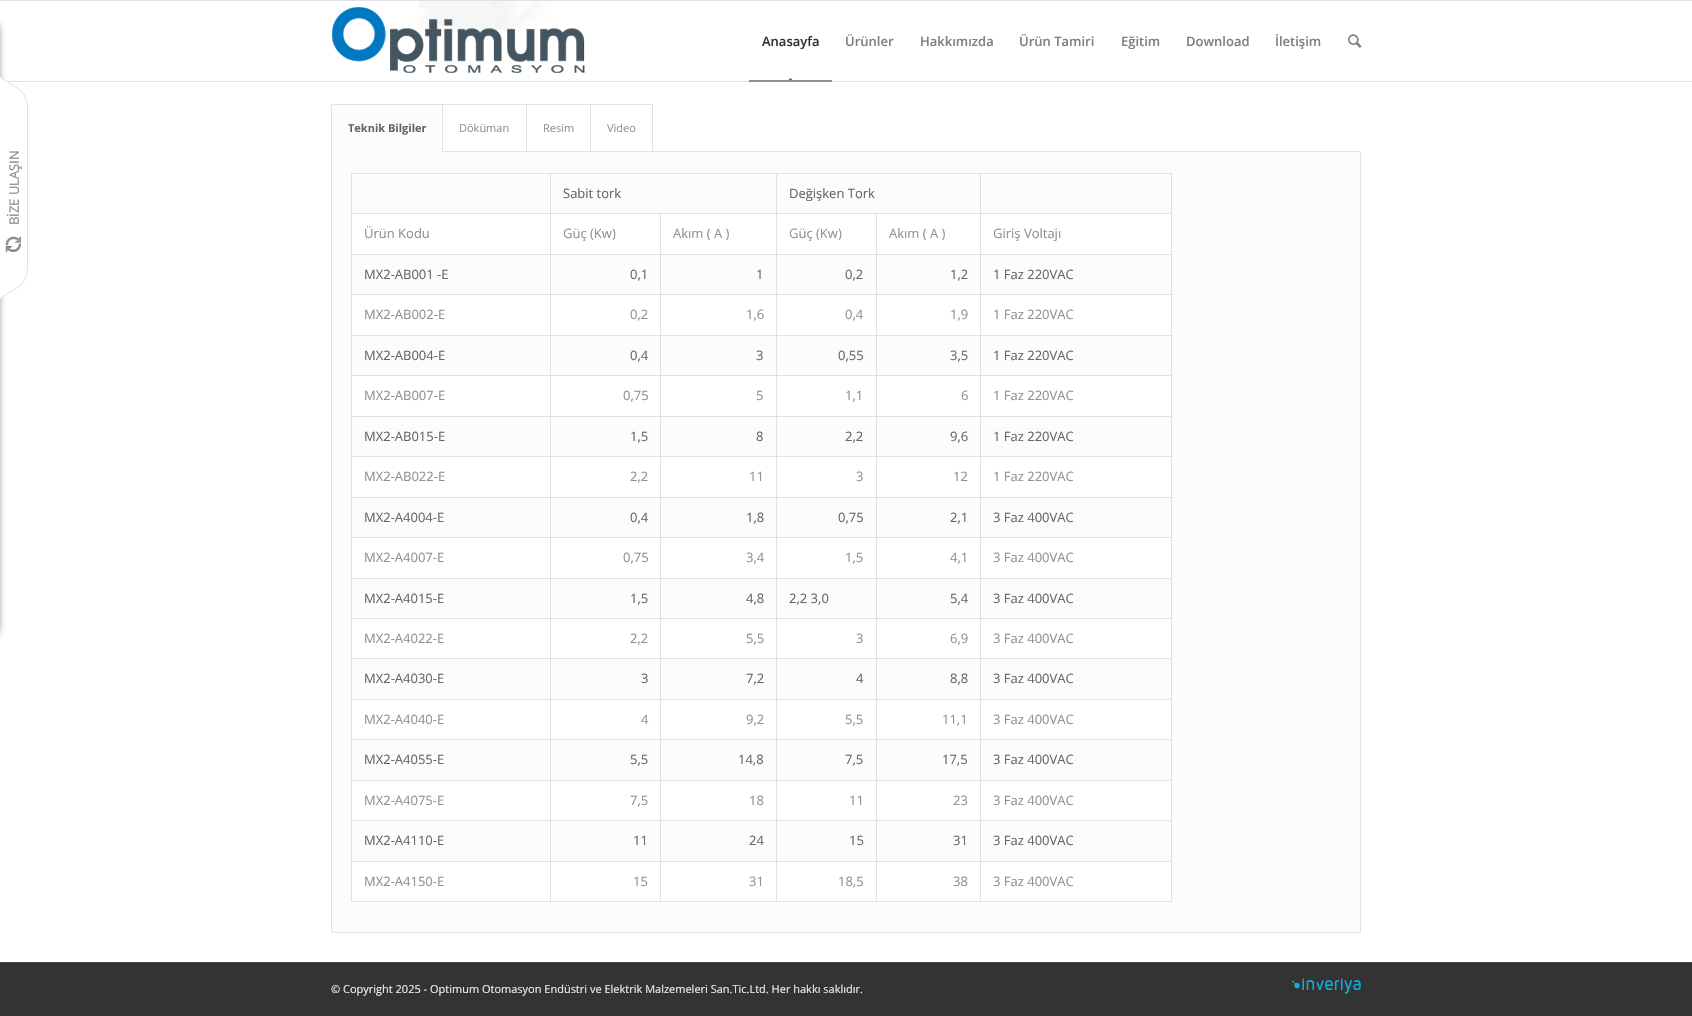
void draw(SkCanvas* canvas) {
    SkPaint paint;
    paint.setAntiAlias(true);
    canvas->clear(0xFFFFFFFF);
    paint.setColor(0xFFE1E1E1);
    canvas->drawRect(SkRect::MakeXYWH(0, 81, 1692, 1), paint);
    paint.setColor(0xFF000000);
    paint.setMaskFilter(SkMaskFilter::MakeBlur(kNormal_SkBlurStyle, 5));
    canvas->drawRoundRect(SkRect::MakeXYWH(-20, 24, 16, 609), 5, 5, paint);
    paint.setMaskFilter(nullptr);
    canvas->drawImageRect(SkImages::DeferredFromEncodedData(SkData::MakeFromFileName("img1.png")), SkRect::MakeXYWH(0, 76, 28, 224), SkSamplingOptions());
    paint.setColor(0xFFE1E1E1);
    canvas->drawRect(SkRect::MakeXYWH(0, 0, 1692, 1), paint);
    canvas->drawImageRect(SkImages::DeferredFromEncodedData(SkData::MakeFromFileName("img4.png")), SkRect::MakeXYWH(403, 1, 161, 37), SkSamplingOptions());
    canvas->drawImageRect(SkImages::DeferredFromEncodedData(SkData::MakeFromFileName("img2.png")), SkRect::MakeXYWH(332, 7, 253, 66), SkSamplingOptions());
    SkFont font1(fontMgr->matchFamilyStyle("Open Sans", SkFontStyle(600, SkFontStyle::kNormal_Width, SkFontStyle::kUpright_Slant)), 13);
    font1.setSubpixel(true);
    paint.setColor(0xFF333333);
    canvas->drawString("Anasayfa", 762, 46, font1, paint);
    paint.setColor(0xFF919191);
    canvas->drawRect(SkRect::MakeXYWH(749, 80, 83, 2), paint);
    canvas->save();
    canvas->clipRect(SkRect::MakeXYWH(785, 70, 10, 10));
    canvas->drawPath(SkPathBuilder().moveTo(790.5f, 78).lineTo(797.5f, 85).lineTo(790.5f, 92).lineTo(783, 85).close().detach(), paint);
    paint.setStyle(SkPaint::kStroke_Style);
    paint.setStrokeWidth(1);
    paint.setColor(0xFFA1300D);
    canvas->drawPath(SkPathBuilder().moveTo(790.5f, 78.5f).lineTo(796.5f, 85).lineTo(790.5f, 91.5f).lineTo(784, 85).close().detach(), paint);
    canvas->restore();
    paint.setStyle(SkPaint::kFill_Style);
    paint.setColor(0xFF808080);
    canvas->drawString("Ürünler", 845, 46, font1, paint);
    canvas->drawString("Hakkımızda", 920, 46, font1, paint);
    canvas->drawString("Ürün Tamiri", 1019, 46, font1, paint);
    canvas->drawString("Eğitim", 1121, 46, font1, paint);
    canvas->drawString("Download", 1186, 46, font1, paint);
    canvas->drawString("İletişim", 1275, 46, font1, paint);
    canvas->drawImageRect(SkImages::DeferredFromEncodedData(SkData::MakeFromFileName("img3.png")), SkRect::MakeXYWH(1348, 34, 14, 14), SkSamplingOptions());
    paint.setColor(0xFFE1E1E1);
    canvas->drawRect(SkRect::MakeXYWH(442, 104, 85, 1), paint);
    paint.setColor(0xFFFCFCFC);
    canvas->drawRoundRect(SkRect::MakeXYWH(331.5f, 151.5f, 1029, 781), 1.5f, 1.5f, paint);
    paint.setStyle(SkPaint::kStroke_Style);
    paint.setColor(0xFFE1E1E1);
    canvas->drawRoundRect(SkRect::MakeXYWH(331.5f, 151.5f, 1029, 781), 1.5f, 1.5f, paint);
    paint.setStyle(SkPaint::kFill_Style);
    paint.setColor(0xFFFCFCFC);
    canvas->drawPath(SkPathBuilder().moveTo(333, 104).lineTo(443, 104).lineTo(443, 152).lineTo(331, 152).lineTo(331, 106).cubicTo(331, 105, 332, 104, 333, 104).close().detach(), paint);
    paint.setColor(0xFFE1E1E1);
    canvas->drawRect(SkRect::MakeXYWH(332, 104, 111, 1), paint);
    canvas->drawRect(SkRect::MakeXYWH(442, 104, 1, 48), paint);
    canvas->drawRect(SkRect::MakeXYWH(331, 105, 1, 47), paint);
    SkFont font2(fontMgr->matchFamilyStyle("Open Sans", SkFontStyle::Bold()), 11);
    font2.setSubpixel(true);
    paint.setColor(0xFF666666);
    canvas->drawString("Teknik Bilgiler", 348, 132, font2, paint);
    paint.setColor(0xFFE1E1E1);
    canvas->drawRect(SkRect::MakeXYWH(526, 104, 1, 48), paint);
    SkFont font3(fontMgr->matchFamilyStyle("Open Sans", SkFontStyle::Normal()), 11);
    font3.setSubpixel(true);
    paint.setColor(0xFF919191);
    canvas->drawString("Döküman", 459, 132, font3, paint);
    paint.setColor(0xFFE1E1E1);
    canvas->drawRect(SkRect::MakeXYWH(526, 104, 65, 1), paint);
    canvas->drawRect(SkRect::MakeXYWH(590, 104, 1, 48), paint);
    paint.setColor(0xFF919191);
    canvas->drawString("Resim", 543, 132, font3, paint);
    paint.setColor(0xFFE1E1E1);
    canvas->drawRect(SkRect::MakeXYWH(590, 104, 63, 1), paint);
    canvas->drawRect(SkRect::MakeXYWH(652, 104, 1, 48), paint);
    paint.setColor(0xFF919191);
    canvas->drawString("Video", 607, 132, font3, paint);
    paint.setColor(0xFFE1E1E1);
    canvas->drawRect(SkRect::MakeXYWH(351, 173, 821, 1), paint);
    canvas->drawRect(SkRect::MakeXYWH(1171, 213, 1, 689), paint);
    canvas->drawRect(SkRect::MakeXYWH(1171, 173, 1, 41), paint);
    paint.setColor(0xFFFFFFFF);
    canvas->drawRect(SkRect::MakeXYWH(352, 214, 819, 40), paint);
    canvas->drawRect(SkRect::MakeXYWH(352, 295, 819, 40), paint);
    canvas->drawRect(SkRect::MakeXYWH(352, 376, 819, 40), paint);
    canvas->drawRect(SkRect::MakeXYWH(352, 457, 819, 40), paint);
    canvas->drawRect(SkRect::MakeXYWH(352, 538, 819, 40), paint);
    canvas->drawRect(SkRect::MakeXYWH(352, 619, 819, 39), paint);
    canvas->drawRect(SkRect::MakeXYWH(352, 700, 819, 39), paint);
    canvas->drawRect(SkRect::MakeXYWH(352, 781, 819, 39), paint);
    canvas->drawRect(SkRect::MakeXYWH(352, 862, 819, 39), paint);
    paint.setColor(0xFFE1E1E1);
    canvas->drawRect(SkRect::MakeXYWH(980, 901, 192, 1), paint);
    canvas->drawRect(SkRect::MakeXYWH(980, 861, 1, 41), paint);
    canvas->drawRect(SkRect::MakeXYWH(980, 861, 192, 1), paint);
    canvas->drawRect(SkRect::MakeXYWH(980, 820, 1, 42), paint);
    canvas->drawRect(SkRect::MakeXYWH(980, 820, 192, 1), paint);
    canvas->drawRect(SkRect::MakeXYWH(980, 780, 1, 41), paint);
    canvas->drawRect(SkRect::MakeXYWH(980, 780, 192, 1), paint);
    canvas->drawRect(SkRect::MakeXYWH(980, 739, 1, 42), paint);
    canvas->drawRect(SkRect::MakeXYWH(980, 739, 192, 1), paint);
    canvas->drawRect(SkRect::MakeXYWH(980, 699, 1, 41), paint);
    canvas->drawRect(SkRect::MakeXYWH(980, 699, 192, 1), paint);
    canvas->drawRect(SkRect::MakeXYWH(980, 658, 1, 42), paint);
    canvas->drawRect(SkRect::MakeXYWH(980, 658, 192, 1), paint);
    canvas->drawRect(SkRect::MakeXYWH(980, 618, 1, 41), paint);
    canvas->drawRect(SkRect::MakeXYWH(980, 618, 192, 1), paint);
    canvas->drawRect(SkRect::MakeXYWH(980, 578, 1, 41), paint);
    canvas->drawRect(SkRect::MakeXYWH(980, 578, 192, 1), paint);
    canvas->drawRect(SkRect::MakeXYWH(980, 537, 1, 42), paint);
    canvas->drawRect(SkRect::MakeXYWH(980, 537, 192, 1), paint);
    canvas->drawRect(SkRect::MakeXYWH(980, 497, 1, 41), paint);
    canvas->drawRect(SkRect::MakeXYWH(980, 497, 192, 1), paint);
    canvas->drawRect(SkRect::MakeXYWH(980, 456, 1, 42), paint);
    canvas->drawRect(SkRect::MakeXYWH(980, 456, 192, 1), paint);
    canvas->drawRect(SkRect::MakeXYWH(980, 416, 1, 41), paint);
    canvas->drawRect(SkRect::MakeXYWH(980, 416, 192, 1), paint);
    canvas->drawRect(SkRect::MakeXYWH(980, 375, 1, 42), paint);
    canvas->drawRect(SkRect::MakeXYWH(980, 375, 192, 1), paint);
    canvas->drawRect(SkRect::MakeXYWH(980, 335, 1, 41), paint);
    canvas->drawRect(SkRect::MakeXYWH(980, 335, 192, 1), paint);
    canvas->drawRect(SkRect::MakeXYWH(980, 294, 1, 42), paint);
    canvas->drawRect(SkRect::MakeXYWH(980, 294, 192, 1), paint);
    canvas->drawRect(SkRect::MakeXYWH(980, 254, 1, 41), paint);
    canvas->drawRect(SkRect::MakeXYWH(980, 254, 192, 1), paint);
    canvas->drawRect(SkRect::MakeXYWH(980, 213, 1, 42), paint);
    canvas->drawRect(SkRect::MakeXYWH(980, 213, 192, 1), paint);
    canvas->drawRect(SkRect::MakeXYWH(980, 173, 1, 41), paint);
    canvas->drawRect(SkRect::MakeXYWH(876, 901, 105, 1), paint);
    canvas->drawRect(SkRect::MakeXYWH(876, 861, 1, 41), paint);
    canvas->drawRect(SkRect::MakeXYWH(876, 861, 105, 1), paint);
    canvas->drawRect(SkRect::MakeXYWH(876, 820, 1, 42), paint);
    canvas->drawRect(SkRect::MakeXYWH(876, 820, 105, 1), paint);
    canvas->drawRect(SkRect::MakeXYWH(876, 780, 1, 41), paint);
    canvas->drawRect(SkRect::MakeXYWH(876, 780, 105, 1), paint);
    canvas->drawRect(SkRect::MakeXYWH(876, 739, 1, 42), paint);
    canvas->drawRect(SkRect::MakeXYWH(876, 739, 105, 1), paint);
    canvas->drawRect(SkRect::MakeXYWH(876, 699, 1, 41), paint);
    canvas->drawRect(SkRect::MakeXYWH(876, 699, 105, 1), paint);
    canvas->drawRect(SkRect::MakeXYWH(876, 658, 1, 42), paint);
    canvas->drawRect(SkRect::MakeXYWH(876, 658, 105, 1), paint);
    canvas->drawRect(SkRect::MakeXYWH(876, 618, 1, 41), paint);
    canvas->drawRect(SkRect::MakeXYWH(876, 618, 105, 1), paint);
    canvas->drawRect(SkRect::MakeXYWH(876, 578, 1, 41), paint);
    canvas->drawRect(SkRect::MakeXYWH(876, 578, 105, 1), paint);
    canvas->drawRect(SkRect::MakeXYWH(876, 537, 1, 42), paint);
    canvas->drawRect(SkRect::MakeXYWH(876, 537, 105, 1), paint);
    canvas->drawRect(SkRect::MakeXYWH(876, 497, 1, 41), paint);
    canvas->drawRect(SkRect::MakeXYWH(876, 497, 105, 1), paint);
    canvas->drawRect(SkRect::MakeXYWH(876, 456, 1, 42), paint);
    canvas->drawRect(SkRect::MakeXYWH(876, 456, 105, 1), paint);
    canvas->drawRect(SkRect::MakeXYWH(876, 416, 1, 41), paint);
    canvas->drawRect(SkRect::MakeXYWH(876, 416, 105, 1), paint);
    canvas->drawRect(SkRect::MakeXYWH(876, 375, 1, 42), paint);
    canvas->drawRect(SkRect::MakeXYWH(876, 375, 105, 1), paint);
    canvas->drawRect(SkRect::MakeXYWH(876, 335, 1, 41), paint);
    canvas->drawRect(SkRect::MakeXYWH(876, 335, 105, 1), paint);
    canvas->drawRect(SkRect::MakeXYWH(876, 294, 1, 42), paint);
    canvas->drawRect(SkRect::MakeXYWH(876, 294, 105, 1), paint);
    canvas->drawRect(SkRect::MakeXYWH(876, 254, 1, 41), paint);
    canvas->drawRect(SkRect::MakeXYWH(876, 254, 105, 1), paint);
    canvas->drawRect(SkRect::MakeXYWH(876, 213, 1, 42), paint);
    canvas->drawRect(SkRect::MakeXYWH(776, 901, 101, 1), paint);
    canvas->drawRect(SkRect::MakeXYWH(776, 861, 1, 41), paint);
    canvas->drawRect(SkRect::MakeXYWH(776, 861, 101, 1), paint);
    canvas->drawRect(SkRect::MakeXYWH(776, 820, 1, 42), paint);
    canvas->drawRect(SkRect::MakeXYWH(776, 820, 101, 1), paint);
    canvas->drawRect(SkRect::MakeXYWH(776, 780, 1, 41), paint);
    canvas->drawRect(SkRect::MakeXYWH(776, 780, 101, 1), paint);
    canvas->drawRect(SkRect::MakeXYWH(776, 739, 1, 42), paint);
    canvas->drawRect(SkRect::MakeXYWH(776, 739, 101, 1), paint);
    canvas->drawRect(SkRect::MakeXYWH(776, 699, 1, 41), paint);
    canvas->drawRect(SkRect::MakeXYWH(776, 699, 101, 1), paint);
    canvas->drawRect(SkRect::MakeXYWH(776, 658, 1, 42), paint);
    canvas->drawRect(SkRect::MakeXYWH(776, 658, 101, 1), paint);
    canvas->drawRect(SkRect::MakeXYWH(776, 618, 1, 41), paint);
    canvas->drawRect(SkRect::MakeXYWH(776, 618, 101, 1), paint);
    canvas->drawRect(SkRect::MakeXYWH(776, 578, 1, 41), paint);
    canvas->drawRect(SkRect::MakeXYWH(776, 578, 101, 1), paint);
    canvas->drawRect(SkRect::MakeXYWH(776, 537, 1, 42), paint);
    canvas->drawRect(SkRect::MakeXYWH(776, 537, 101, 1), paint);
    canvas->drawRect(SkRect::MakeXYWH(776, 497, 1, 41), paint);
    canvas->drawRect(SkRect::MakeXYWH(776, 497, 101, 1), paint);
    canvas->drawRect(SkRect::MakeXYWH(776, 456, 1, 42), paint);
    canvas->drawRect(SkRect::MakeXYWH(776, 456, 101, 1), paint);
    canvas->drawRect(SkRect::MakeXYWH(776, 416, 1, 41), paint);
    canvas->drawRect(SkRect::MakeXYWH(776, 416, 101, 1), paint);
    canvas->drawRect(SkRect::MakeXYWH(776, 375, 1, 42), paint);
    canvas->drawRect(SkRect::MakeXYWH(776, 375, 101, 1), paint);
    canvas->drawRect(SkRect::MakeXYWH(776, 335, 1, 41), paint);
    canvas->drawRect(SkRect::MakeXYWH(776, 335, 101, 1), paint);
    canvas->drawRect(SkRect::MakeXYWH(776, 294, 1, 42), paint);
    canvas->drawRect(SkRect::MakeXYWH(776, 294, 101, 1), paint);
    canvas->drawRect(SkRect::MakeXYWH(776, 254, 1, 41), paint);
    canvas->drawRect(SkRect::MakeXYWH(776, 254, 101, 1), paint);
    canvas->drawRect(SkRect::MakeXYWH(776, 213, 1, 42), paint);
    canvas->drawRect(SkRect::MakeXYWH(776, 213, 205, 1), paint);
    canvas->drawRect(SkRect::MakeXYWH(776, 173, 1, 41), paint);
    canvas->drawRect(SkRect::MakeXYWH(660, 901, 117, 1), paint);
    canvas->drawRect(SkRect::MakeXYWH(660, 861, 1, 41), paint);
    canvas->drawRect(SkRect::MakeXYWH(660, 861, 117, 1), paint);
    canvas->drawRect(SkRect::MakeXYWH(660, 820, 1, 42), paint);
    canvas->drawRect(SkRect::MakeXYWH(660, 820, 117, 1), paint);
    canvas->drawRect(SkRect::MakeXYWH(660, 780, 1, 41), paint);
    canvas->drawRect(SkRect::MakeXYWH(660, 780, 117, 1), paint);
    canvas->drawRect(SkRect::MakeXYWH(660, 739, 1, 42), paint);
    canvas->drawRect(SkRect::MakeXYWH(660, 739, 117, 1), paint);
    canvas->drawRect(SkRect::MakeXYWH(660, 699, 1, 41), paint);
    canvas->drawRect(SkRect::MakeXYWH(660, 699, 117, 1), paint);
    canvas->drawRect(SkRect::MakeXYWH(660, 658, 1, 42), paint);
    canvas->drawRect(SkRect::MakeXYWH(660, 658, 117, 1), paint);
    canvas->drawRect(SkRect::MakeXYWH(660, 618, 1, 41), paint);
    canvas->drawRect(SkRect::MakeXYWH(660, 618, 117, 1), paint);
    canvas->drawRect(SkRect::MakeXYWH(660, 578, 1, 41), paint);
    canvas->drawRect(SkRect::MakeXYWH(660, 578, 117, 1), paint);
    canvas->drawRect(SkRect::MakeXYWH(660, 537, 1, 42), paint);
    canvas->drawRect(SkRect::MakeXYWH(660, 537, 117, 1), paint);
    canvas->drawRect(SkRect::MakeXYWH(660, 497, 1, 41), paint);
    canvas->drawRect(SkRect::MakeXYWH(660, 497, 117, 1), paint);
    canvas->drawRect(SkRect::MakeXYWH(660, 456, 1, 42), paint);
    canvas->drawRect(SkRect::MakeXYWH(660, 456, 117, 1), paint);
    canvas->drawRect(SkRect::MakeXYWH(660, 416, 1, 41), paint);
    canvas->drawRect(SkRect::MakeXYWH(660, 416, 117, 1), paint);
    canvas->drawRect(SkRect::MakeXYWH(660, 375, 1, 42), paint);
    canvas->drawRect(SkRect::MakeXYWH(660, 375, 117, 1), paint);
    canvas->drawRect(SkRect::MakeXYWH(660, 335, 1, 41), paint);
    canvas->drawRect(SkRect::MakeXYWH(660, 335, 117, 1), paint);
    canvas->drawRect(SkRect::MakeXYWH(660, 294, 1, 42), paint);
    canvas->drawRect(SkRect::MakeXYWH(660, 294, 117, 1), paint);
    canvas->drawRect(SkRect::MakeXYWH(660, 254, 1, 41), paint);
    canvas->drawRect(SkRect::MakeXYWH(660, 254, 117, 1), paint);
    canvas->drawRect(SkRect::MakeXYWH(660, 213, 1, 42), paint);
    canvas->drawRect(SkRect::MakeXYWH(550, 901, 111, 1), paint);
    canvas->drawRect(SkRect::MakeXYWH(550, 861, 1, 41), paint);
    canvas->drawRect(SkRect::MakeXYWH(550, 861, 111, 1), paint);
    canvas->drawRect(SkRect::MakeXYWH(550, 820, 1, 42), paint);
    canvas->drawRect(SkRect::MakeXYWH(550, 820, 111, 1), paint);
    canvas->drawRect(SkRect::MakeXYWH(550, 780, 1, 41), paint);
    canvas->drawRect(SkRect::MakeXYWH(550, 780, 111, 1), paint);
    canvas->drawRect(SkRect::MakeXYWH(550, 739, 1, 42), paint);
    canvas->drawRect(SkRect::MakeXYWH(550, 739, 111, 1), paint);
    canvas->drawRect(SkRect::MakeXYWH(550, 699, 1, 41), paint);
    canvas->drawRect(SkRect::MakeXYWH(550, 699, 111, 1), paint);
    canvas->drawRect(SkRect::MakeXYWH(550, 658, 1, 42), paint);
    canvas->drawRect(SkRect::MakeXYWH(550, 658, 111, 1), paint);
    canvas->drawRect(SkRect::MakeXYWH(550, 618, 1, 41), paint);
    canvas->drawRect(SkRect::MakeXYWH(550, 618, 111, 1), paint);
    canvas->drawRect(SkRect::MakeXYWH(550, 578, 1, 41), paint);
    canvas->drawRect(SkRect::MakeXYWH(550, 578, 111, 1), paint);
    canvas->drawRect(SkRect::MakeXYWH(550, 537, 1, 42), paint);
    canvas->drawRect(SkRect::MakeXYWH(550, 537, 111, 1), paint);
    canvas->drawRect(SkRect::MakeXYWH(550, 497, 1, 41), paint);
    canvas->drawRect(SkRect::MakeXYWH(550, 497, 111, 1), paint);
    canvas->drawRect(SkRect::MakeXYWH(550, 456, 1, 42), paint);
    canvas->drawRect(SkRect::MakeXYWH(550, 456, 111, 1), paint);
    canvas->drawRect(SkRect::MakeXYWH(550, 416, 1, 41), paint);
    canvas->drawRect(SkRect::MakeXYWH(550, 416, 111, 1), paint);
    canvas->drawRect(SkRect::MakeXYWH(550, 375, 1, 42), paint);
    canvas->drawRect(SkRect::MakeXYWH(550, 375, 111, 1), paint);
    canvas->drawRect(SkRect::MakeXYWH(550, 335, 1, 41), paint);
    canvas->drawRect(SkRect::MakeXYWH(550, 335, 111, 1), paint);
    canvas->drawRect(SkRect::MakeXYWH(550, 294, 1, 42), paint);
    canvas->drawRect(SkRect::MakeXYWH(550, 294, 111, 1), paint);
    canvas->drawRect(SkRect::MakeXYWH(550, 254, 1, 41), paint);
    canvas->drawRect(SkRect::MakeXYWH(550, 254, 111, 1), paint);
    canvas->drawRect(SkRect::MakeXYWH(550, 213, 1, 42), paint);
    canvas->drawRect(SkRect::MakeXYWH(550, 213, 227, 1), paint);
    canvas->drawRect(SkRect::MakeXYWH(550, 173, 1, 41), paint);
    canvas->drawRect(SkRect::MakeXYWH(351, 901, 200, 1), paint);
    canvas->drawRect(SkRect::MakeXYWH(351, 861, 1, 41), paint);
    canvas->drawRect(SkRect::MakeXYWH(351, 861, 200, 1), paint);
    canvas->drawRect(SkRect::MakeXYWH(351, 820, 1, 42), paint);
    canvas->drawRect(SkRect::MakeXYWH(351, 820, 200, 1), paint);
    canvas->drawRect(SkRect::MakeXYWH(351, 780, 1, 41), paint);
    canvas->drawRect(SkRect::MakeXYWH(351, 780, 200, 1), paint);
    canvas->drawRect(SkRect::MakeXYWH(351, 739, 1, 42), paint);
    canvas->drawRect(SkRect::MakeXYWH(351, 739, 200, 1), paint);
    canvas->drawRect(SkRect::MakeXYWH(351, 699, 1, 41), paint);
    canvas->drawRect(SkRect::MakeXYWH(351, 699, 200, 1), paint);
    canvas->drawRect(SkRect::MakeXYWH(351, 658, 1, 42), paint);
    canvas->drawRect(SkRect::MakeXYWH(351, 658, 200, 1), paint);
    canvas->drawRect(SkRect::MakeXYWH(351, 618, 1, 41), paint);
    canvas->drawRect(SkRect::MakeXYWH(351, 618, 200, 1), paint);
    canvas->drawRect(SkRect::MakeXYWH(351, 578, 1, 41), paint);
    canvas->drawRect(SkRect::MakeXYWH(351, 578, 200, 1), paint);
    canvas->drawRect(SkRect::MakeXYWH(351, 537, 1, 42), paint);
    canvas->drawRect(SkRect::MakeXYWH(351, 537, 200, 1), paint);
    canvas->drawRect(SkRect::MakeXYWH(351, 497, 1, 41), paint);
    canvas->drawRect(SkRect::MakeXYWH(351, 497, 200, 1), paint);
    canvas->drawRect(SkRect::MakeXYWH(351, 456, 1, 42), paint);
    canvas->drawRect(SkRect::MakeXYWH(351, 456, 200, 1), paint);
    canvas->drawRect(SkRect::MakeXYWH(351, 416, 1, 41), paint);
    canvas->drawRect(SkRect::MakeXYWH(351, 416, 200, 1), paint);
    canvas->drawRect(SkRect::MakeXYWH(351, 375, 1, 42), paint);
    canvas->drawRect(SkRect::MakeXYWH(351, 375, 200, 1), paint);
    canvas->drawRect(SkRect::MakeXYWH(351, 335, 1, 41), paint);
    canvas->drawRect(SkRect::MakeXYWH(351, 335, 200, 1), paint);
    canvas->drawRect(SkRect::MakeXYWH(351, 294, 1, 42), paint);
    canvas->drawRect(SkRect::MakeXYWH(351, 294, 200, 1), paint);
    canvas->drawRect(SkRect::MakeXYWH(351, 254, 1, 41), paint);
    canvas->drawRect(SkRect::MakeXYWH(351, 254, 200, 1), paint);
    canvas->drawRect(SkRect::MakeXYWH(351, 213, 1, 42), paint);
    canvas->drawRect(SkRect::MakeXYWH(351, 213, 200, 1), paint);
    canvas->drawRect(SkRect::MakeXYWH(351, 173, 1, 41), paint);
    SkFont font4(fontMgr->matchFamilyStyle("Open Sans", SkFontStyle::Normal()), 13);
    font4.setSubpixel(true);
    paint.setColor(0xFF666666);
    canvas->drawString("Sabit tork", 563, 198, font4, paint);
    canvas->drawString("Değişken Tork", 789, 198, font4, paint);
    paint.setColor(0xFF919191);
    canvas->drawString("Ürün Kodu", 364, 238, font4, paint);
    canvas->drawString("Güç (Kw)", 563, 238, font4, paint);
    canvas->drawString("Akım ( A )", 673, 238, font4, paint);
    canvas->drawString("Güç (Kw)", 789, 238, font4, paint);
    canvas->drawString("Akım ( A )", 889, 238, font4, paint);
    canvas->drawString("Giriş Voltajı", 993, 238, font4, paint);
    paint.setColor(0xFF666666);
    canvas->drawString("MX2-AB001 -E", 364, 279, font4, paint);
    canvas->drawString("0,1", 630, 279, font4, paint);
    canvas->drawString("1", 756, 279, font4, paint);
    canvas->drawString("0,2", 845, 279, font4, paint);
    canvas->drawString("1,2", 950, 279, font4, paint);
    canvas->drawString("1 Faz 220VAC", 993, 279, font4, paint);
    paint.setColor(0xFF919191);
    canvas->drawString("MX2-AB002-E", 364, 319, font4, paint);
    canvas->drawString("0,2", 630, 319, font4, paint);
    canvas->drawString("1,6", 746, 319, font4, paint);
    canvas->drawString("0,4", 845, 319, font4, paint);
    canvas->drawString("1,9", 950, 319, font4, paint);
    canvas->drawString("1 Faz 220VAC", 993, 319, font4, paint);
    paint.setColor(0xFF666666);
    canvas->drawString("MX2-AB004-E", 364, 360, font4, paint);
    canvas->drawString("0,4", 630, 360, font4, paint);
    canvas->drawString("3", 756, 360, font4, paint);
    canvas->drawString("0,55", 838, 360, font4, paint);
    canvas->drawString("3,5", 950, 360, font4, paint);
    canvas->drawString("1 Faz 220VAC", 993, 360, font4, paint);
    paint.setColor(0xFF919191);
    canvas->drawString("MX2-AB007-E", 364, 400, font4, paint);
    canvas->drawString("0,75", 623, 400, font4, paint);
    canvas->drawString("5", 756, 400, font4, paint);
    canvas->drawString("1,1", 845, 400, font4, paint);
    canvas->drawString("6", 961, 400, font4, paint);
    canvas->drawString("1 Faz 220VAC", 993, 400, font4, paint);
    paint.setColor(0xFF666666);
    canvas->drawString("MX2-AB015-E", 364, 441, font4, paint);
    canvas->drawString("1,5", 630, 441, font4, paint);
    canvas->drawString("8", 756, 441, font4, paint);
    canvas->drawString("2,2", 845, 441, font4, paint);
    canvas->drawString("9,6", 950, 441, font4, paint);
    canvas->drawString("1 Faz 220VAC", 993, 441, font4, paint);
    paint.setColor(0xFF919191);
    canvas->drawString("MX2-AB022-E", 364, 481, font4, paint);
    canvas->drawString("2,2", 630, 481, font4, paint);
    canvas->drawString("11", 749, 481, font4, paint);
    canvas->drawString("3", 856, 481, font4, paint);
    canvas->drawString("12", 953, 481, font4, paint);
    canvas->drawString("1 Faz 220VAC", 993, 481, font4, paint);
    paint.setColor(0xFF666666);
    canvas->drawString("MX2-A4004-E", 364, 522, font4, paint);
    canvas->drawString("0,4", 630, 522, font4, paint);
    canvas->drawString("1,8", 746, 522, font4, paint);
    canvas->drawString("0,75", 838, 522, font4, paint);
    canvas->drawString("2,1", 950, 522, font4, paint);
    canvas->drawString("3 Faz 400VAC", 993, 522, font4, paint);
    paint.setColor(0xFF919191);
    canvas->drawString("MX2-A4007-E", 364, 562, font4, paint);
    canvas->drawString("0,75", 623, 562, font4, paint);
    canvas->drawString("3,4", 746, 562, font4, paint);
    canvas->drawString("1,5", 845, 562, font4, paint);
    canvas->drawString("4,1", 950, 562, font4, paint);
    canvas->drawString("3 Faz 400VAC", 993, 562, font4, paint);
    paint.setColor(0xFF666666);
    canvas->drawString("MX2-A4015-E", 364, 603, font4, paint);
    canvas->drawString("1,5", 630, 603, font4, paint);
    canvas->drawString("4,8", 746, 603, font4, paint);
    canvas->drawString("2,2 3,0", 789, 603, font4, paint);
    canvas->drawString("5,4", 950, 603, font4, paint);
    canvas->drawString("3 Faz 400VAC", 993, 603, font4, paint);
    paint.setColor(0xFF919191);
    canvas->drawString("MX2-A4022-E", 364, 643, font4, paint);
    canvas->drawString("2,2", 630, 643, font4, paint);
    canvas->drawString("5,5", 746, 643, font4, paint);
    canvas->drawString("3", 856, 643, font4, paint);
    canvas->drawString("6,9", 950, 643, font4, paint);
    canvas->drawString("3 Faz 400VAC", 993, 643, font4, paint);
    paint.setColor(0xFF666666);
    canvas->drawString("MX2-A4030-E", 364, 683, font4, paint);
    canvas->drawString("3", 641, 683, font4, paint);
    canvas->drawString("7,2", 746, 683, font4, paint);
    canvas->drawString("4", 856, 683, font4, paint);
    canvas->drawString("8,8", 950, 683, font4, paint);
    canvas->drawString("3 Faz 400VAC", 993, 683, font4, paint);
    paint.setColor(0xFF919191);
    canvas->drawString("MX2-A4040-E", 364, 724, font4, paint);
    canvas->drawString("4", 641, 724, font4, paint);
    canvas->drawString("9,2", 746, 724, font4, paint);
    canvas->drawString("5,5", 845, 724, font4, paint);
    canvas->drawString("11,1", 942, 724, font4, paint);
    canvas->drawString("3 Faz 400VAC", 993, 724, font4, paint);
    paint.setColor(0xFF666666);
    canvas->drawString("MX2-A4055-E", 364, 764, font4, paint);
    canvas->drawString("5,5", 630, 764, font4, paint);
    canvas->drawString("14,8", 738, 764, font4, paint);
    canvas->drawString("7,5", 845, 764, font4, paint);
    canvas->drawString("17,5", 942, 764, font4, paint);
    canvas->drawString("3 Faz 400VAC", 993, 764, font4, paint);
    paint.setColor(0xFF919191);
    canvas->drawString("MX2-A4075-E", 364, 805, font4, paint);
    canvas->drawString("7,5", 630, 805, font4, paint);
    canvas->drawString("18", 749, 805, font4, paint);
    canvas->drawString("11", 849, 805, font4, paint);
    canvas->drawString("23", 953, 805, font4, paint);
    canvas->drawString("3 Faz 400VAC", 993, 805, font4, paint);
    paint.setColor(0xFF666666);
    canvas->drawString("MX2-A4110-E", 364, 845, font4, paint);
    canvas->drawString("11", 633, 845, font4, paint);
    canvas->drawString("24", 749, 845, font4, paint);
    canvas->drawString("15", 849, 845, font4, paint);
    canvas->drawString("31", 953, 845, font4, paint);
    canvas->drawString("3 Faz 400VAC", 993, 845, font4, paint);
    paint.setColor(0xFF919191);
    canvas->drawString("MX2-A4150-E", 364, 886, font4, paint);
    canvas->drawString("15", 633, 886, font4, paint);
    canvas->drawString("31", 749, 886, font4, paint);
    canvas->drawString("18,5", 838, 886, font4, paint);
    canvas->drawString("38", 953, 886, font4, paint);
    canvas->drawString("3 Faz 400VAC", 993, 886, font4, paint);
    paint.setColor(0xFF333333);
    canvas->drawRect(SkRect::MakeXYWH(0, 963, 1692, 53), paint);
    paint.setColor(0xFF444444);
    canvas->drawRect(SkRect::MakeXYWH(0, 962, 1692, 1), paint);
    paint.setColor(0xFFEEEEEE);
    canvas->drawString("© Copyright 2025 - Optimum Otomasyon Endüstri ve Elektrik Malzemeleri San.Tic.Ltd. Her hakkı saklıdır.", 331, 993, font3, paint);
    canvas->drawImageRect(SkImages::DeferredFromEncodedData(SkData::MakeFromFileName("img5.png")), SkRect::MakeXYWH(1292, 978, 69, 16), SkSamplingOptions());
}
